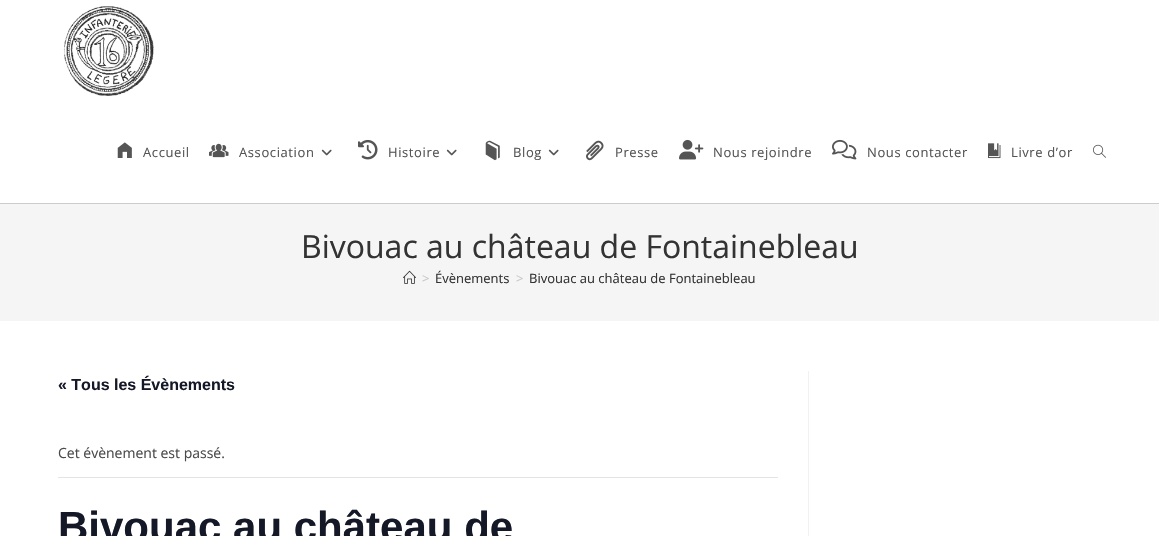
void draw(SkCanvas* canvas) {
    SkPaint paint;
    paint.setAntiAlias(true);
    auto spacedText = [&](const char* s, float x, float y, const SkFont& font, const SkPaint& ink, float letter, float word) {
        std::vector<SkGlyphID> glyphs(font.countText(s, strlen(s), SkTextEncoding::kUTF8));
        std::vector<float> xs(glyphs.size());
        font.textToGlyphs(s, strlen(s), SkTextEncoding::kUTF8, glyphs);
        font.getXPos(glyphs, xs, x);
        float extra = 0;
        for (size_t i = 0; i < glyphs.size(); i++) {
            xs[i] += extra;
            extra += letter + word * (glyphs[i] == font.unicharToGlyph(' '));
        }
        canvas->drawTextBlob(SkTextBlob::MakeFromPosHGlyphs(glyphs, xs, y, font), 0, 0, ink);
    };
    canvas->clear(0xFFFFFFFF);
    paint.setColor(0xFFCCCCCC);
    canvas->drawRect(SkRect::MakeXYWH(0, 203, 1159, 1), paint);
    canvas->drawImageRect(SkImages::DeferredFromEncodedData(SkData::MakeFromFileName("img1.png")), SkRect::MakeXYWH(63, 6, 91, 90), SkSamplingOptions());
    canvas->drawImageRect(SkImages::DeferredFromEncodedData(SkData::MakeFromFileName("img2.png")), SkRect::MakeXYWH(117, 142, 15, 16), SkSamplingOptions());
    SkFont font1(fontMgr->matchFamilyStyle("Open Sans", SkFontStyle::Normal()), 13);
    font1.setSubpixel(true);
    paint.setColor(0xFF555555);
    spacedText("Accueil", 143, 157, font1, paint, 0.6f, 0);
    canvas->drawImageRect(SkImages::DeferredFromEncodedData(SkData::MakeFromFileName("img3.png")), SkRect::MakeXYWH(209, 143, 20, 15), SkSamplingOptions());
    spacedText("Association", 239, 157, font1, paint, 0.6f, 0);
    canvas->drawImageRect(SkImages::DeferredFromEncodedData(SkData::MakeFromFileName("img4.png")), SkRect::MakeXYWH(321, 149, 11, 7), SkSamplingOptions());
    canvas->drawImageRect(SkImages::DeferredFromEncodedData(SkData::MakeFromFileName("img5.png")), SkRect::MakeXYWH(358, 139, 20, 21), SkSamplingOptions());
    spacedText("Histoire", 388, 157, font1, paint, 0.6f, 0);
    canvas->drawImageRect(SkImages::DeferredFromEncodedData(SkData::MakeFromFileName("img4.png")), SkRect::MakeXYWH(446, 149, 11, 7), SkSamplingOptions());
    canvas->drawImageRect(SkImages::DeferredFromEncodedData(SkData::MakeFromFileName("img6.png")), SkRect::MakeXYWH(485, 140, 15, 21), SkSamplingOptions());
    spacedText("Blog", 513, 157, font1, paint, 0.6f, 0);
    canvas->drawImageRect(SkImages::DeferredFromEncodedData(SkData::MakeFromFileName("img4.png")), SkRect::MakeXYWH(548, 149, 11, 7), SkSamplingOptions());
    canvas->drawImageRect(SkImages::DeferredFromEncodedData(SkData::MakeFromFileName("img7.png")), SkRect::MakeXYWH(586, 140, 18, 21), SkSamplingOptions());
    spacedText("Presse", 615, 157, font1, paint, 0.6f, 0);
    canvas->drawImageRect(SkImages::DeferredFromEncodedData(SkData::MakeFromFileName("img8.png")), SkRect::MakeXYWH(679, 139, 25, 21), SkSamplingOptions());
    spacedText("Nous rejoindre", 713, 157, font1, paint, 0.6f, 0);
    canvas->drawImageRect(SkImages::DeferredFromEncodedData(SkData::MakeFromFileName("img9.png")), SkRect::MakeXYWH(832, 139, 25, 21), SkSamplingOptions());
    spacedText("Nous contacter", 867, 157, font1, paint, 0.6f, 0);
    canvas->drawImageRect(SkImages::DeferredFromEncodedData(SkData::MakeFromFileName("img10.png")), SkRect::MakeXYWH(988, 143, 13, 16), SkSamplingOptions());
    spacedText("Livre d’or", 1011, 157, font1, paint, 0.6f, 0);
    canvas->drawImageRect(SkImages::DeferredFromEncodedData(SkData::MakeFromFileName("img11.png")), SkRect::MakeXYWH(1093, 144, 13, 14), SkSamplingOptions());
    paint.setColor(0xFFF5F5F5);
    canvas->drawRect(SkRect::MakeXYWH(0, 204, 1159, 117), paint);
    SkFont font2(fontMgr->matchFamilyStyle("Open Sans", SkFontStyle::Normal()), 32);
    font2.setSubpixel(true);
    paint.setColor(0xFF333333);
    canvas->drawString("Bivouac au château de Fontainebleau", 301, 258, font2, paint);
    canvas->drawImageRect(SkImages::DeferredFromEncodedData(SkData::MakeFromFileName("img12.png")), SkRect::MakeXYWH(403, 270, 13, 14), SkSamplingOptions());
    paint.setColor(0xFFC6C6C6);
    canvas->drawString(">", 422, 283, font1, paint);
    paint.setColor(0xFF333333);
    canvas->drawString("Évènements", 435, 283, font1, paint);
    paint.setColor(0xFFC6C6C6);
    canvas->drawString(">", 516, 283, font1, paint);
    paint.setColor(0xFF333333);
    canvas->drawString("Bivouac au château de Fontainebleau", 529, 283, font1, paint);
    paint.setColor(0xFFF1F1F1);
    canvas->drawRect(SkRect::MakeXYWH(808, 371, 1, 165), paint);
    SkFont font3(fontMgr->matchFamilyStyle("Liberation Sans", SkFontStyle::Bold()), 16);
    font3.setSubpixel(true);
    paint.setColor(0xFF141827);
    canvas->drawString("« Tous les Évènements", 58, 390, font3, paint);
    paint.setColor(0xFFE4E4E4);
    canvas->drawRect(SkRect::MakeXYWH(58, 477, 720, 1), paint);
    SkFont font4(fontMgr->matchFamilyStyle("Open Sans", SkFontStyle::Normal()), 14);
    font4.setSubpixel(true);
    paint.setColor(0xFF4A4A4A);
    canvas->drawString("Cet évènement est passé.", 58, 458, font4, paint);
    SkFont font5(fontMgr->matchFamilyStyle("Liberation Sans", SkFontStyle::Bold()), 42);
    font5.setSubpixel(true);
    paint.setColor(0xFF141827);
    canvas->drawString("Bivouac au château de", 58, 541, font5, paint);
}
